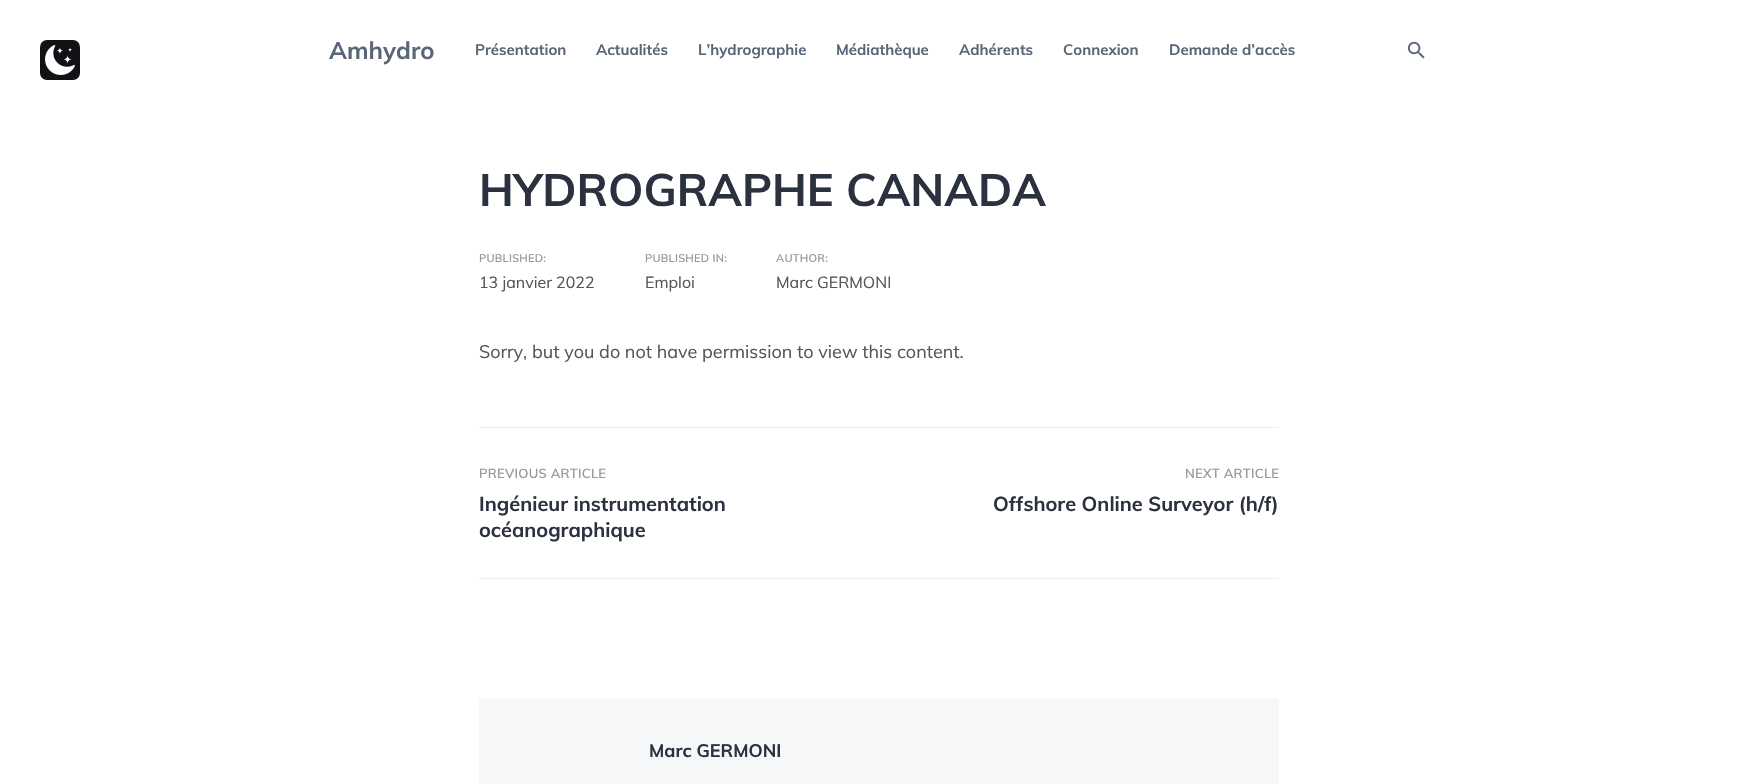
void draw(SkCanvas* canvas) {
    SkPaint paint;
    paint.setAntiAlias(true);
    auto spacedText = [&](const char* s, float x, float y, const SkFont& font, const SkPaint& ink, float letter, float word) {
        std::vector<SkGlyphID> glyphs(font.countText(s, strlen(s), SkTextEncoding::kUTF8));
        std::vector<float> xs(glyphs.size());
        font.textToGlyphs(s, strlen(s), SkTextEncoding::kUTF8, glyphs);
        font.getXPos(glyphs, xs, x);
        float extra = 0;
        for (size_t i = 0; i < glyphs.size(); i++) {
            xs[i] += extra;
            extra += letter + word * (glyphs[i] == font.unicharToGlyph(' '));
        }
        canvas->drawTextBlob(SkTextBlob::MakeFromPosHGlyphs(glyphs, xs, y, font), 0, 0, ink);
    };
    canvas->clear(0xFFFFFFFF);
    paint.setColor(0xFF121116);
    canvas->drawRoundRect(SkRect::MakeXYWH(40, 40, 40, 40), 7, 7, paint);
    canvas->drawImageRect(SkImages::DeferredFromEncodedData(SkData::MakeFromFileName("img1.png")), SkRect::MakeXYWH(45, 45, 30, 30), SkSamplingOptions());
    SkFont font1(fontMgr->matchFamilyStyle("Muli", SkFontStyle::Bold()), 24);
    font1.setSubpixel(true);
    paint.setColor(0xFF596678);
    canvas->drawString("Amhydro", 329, 59, font1, paint);
    SkFont font2(fontMgr->matchFamilyStyle("Muli", SkFontStyle::Bold()), 15);
    font2.setSubpixel(true);
    canvas->drawString("Présentation", 475, 55, font2, paint);
    canvas->drawString("Actualités", 596, 55, font2, paint);
    canvas->drawString("L’hydrographie", 698, 55, font2, paint);
    canvas->drawString("Médiathèque", 836, 55, font2, paint);
    canvas->drawString("Adhérents", 959, 55, font2, paint);
    canvas->drawString("Connexion", 1063, 55, font2, paint);
    canvas->drawString("Demande d’accès", 1169, 55, font2, paint);
    canvas->drawImageRect(SkImages::DeferredFromEncodedData(SkData::MakeFromFileName("img2.png")), SkRect::MakeXYWH(1407, 41, 18, 18), SkSamplingOptions());
    SkFont font3(fontMgr->matchFamilyStyle("Muli", SkFontStyle::Bold()), 45);
    font3.setSubpixel(true);
    paint.setColor(0xFF2B313E);
    canvas->drawString("HYDROGRAPHE CANADA", 479, 206, font3, paint);
    SkFont font4(fontMgr->matchFamilyStyle("Muli", SkFontStyle(600, SkFontStyle::kNormal_Width, SkFontStyle::kUpright_Slant)), 11);
    font4.setSubpixel(true);
    paint.setColor(0xFF999999);
    spacedText("PUBLISHED:", 479, 262, font4, paint, 0.25f, 0);
    SkFont font5(fontMgr->matchFamilyStyle("Muli", SkFontStyle::Normal()), 16);
    font5.setSubpixel(true);
    paint.setColor(0xFF555555);
    canvas->drawString("13 janvier 2022", 479, 288, font5, paint);
    paint.setColor(0xFF999999);
    spacedText("PUBLISHED IN:", 645, 262, font4, paint, 0.25f, 0);
    paint.setColor(0xFF555555);
    canvas->drawString("Emploi", 645, 288, font5, paint);
    paint.setColor(0xFF999999);
    spacedText("AUTHOR:", 776, 262, font4, paint, 0.25f, 0);
    paint.setColor(0xFF555555);
    canvas->drawString("Marc GERMONI", 776, 288, font5, paint);
    SkFont font6(fontMgr->matchFamilyStyle("Muli", SkFontStyle::Normal()), 18);
    font6.setSubpixel(true);
    canvas->drawString("Sorry, but you do not have permission to view this content.", 479, 358, font6, paint);
    paint.setColor(0xFFEEEEEE);
    canvas->drawRect(SkRect::MakeXYWH(479, 427, 800, 1), paint);
    canvas->drawRect(SkRect::MakeXYWH(479, 578, 800, 1), paint);
    SkFont font7(fontMgr->matchFamilyStyle("Muli", SkFontStyle(600, SkFontStyle::kNormal_Width, SkFontStyle::kUpright_Slant)), 13);
    font7.setSubpixel(true);
    paint.setColor(0xFF999999);
    spacedText("PREVIOUS ARTICLE", 479, 478, font7, paint, 0.25f, 0);
    SkFont font8(fontMgr->matchFamilyStyle("Muli", SkFontStyle::Bold()), 20);
    font8.setSubpixel(true);
    paint.setColor(0xFF2B313E);
    canvas->drawString("Ingénieur instrumentation", 479, 511, font8, paint);
    canvas->drawString("océanographique", 479, 537, font8, paint);
    paint.setColor(0xFF999999);
    spacedText("NEXT ARTICLE", 1185, 478, font7, paint, 0.25f, 0);
    paint.setColor(0xFF2B313E);
    canvas->drawString("Offshore Online Surveyor (h/f)", 993, 511, font8, paint);
    paint.setColor(0xFFF6F7F8);
    canvas->drawRect(SkRect::MakeXYWH(479, 699, 800, 85), paint);
    SkFont font9(fontMgr->matchFamilyStyle("Muli", SkFontStyle::Bold()), 18);
    font9.setSubpixel(true);
    paint.setColor(0xFF2B313E);
    canvas->drawString("Marc GERMONI", 649, 757, font9, paint);
}
